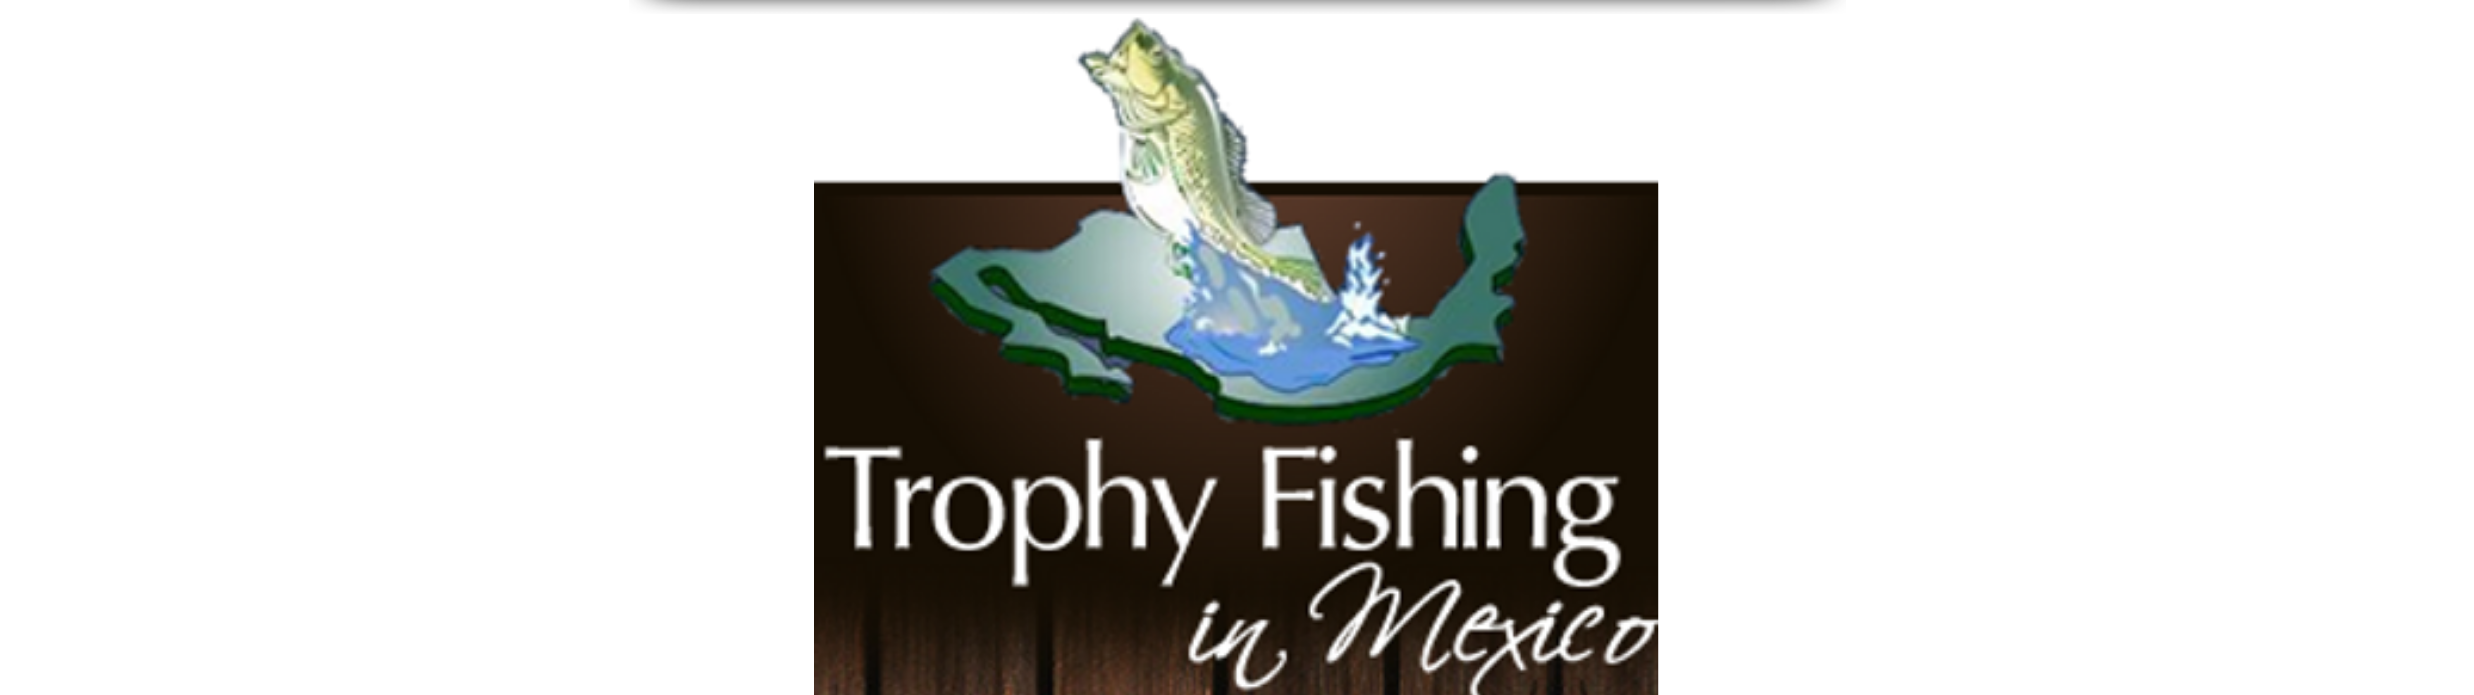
void draw(SkCanvas* canvas) {
    SkPaint paint;
    paint.setAntiAlias(true);
    canvas->clear(0xFFFFFFFF);
    canvas->drawImageRect(SkImages::DeferredFromEncodedData(SkData::MakeFromFileName("img1.png")), SkRect::MakeXYWH(629, 0, 121, 14), SkSamplingOptions());
    canvas->drawImageRect(SkImages::DeferredFromEncodedData(SkData::MakeFromFileName("img2.png")), SkRect::MakeXYWH(750, 0, 975, 14), SkSamplingOptions());
    canvas->drawImageRect(SkImages::DeferredFromEncodedData(SkData::MakeFromFileName("img3.png")), SkRect::MakeXYWH(1725, 0, 121, 14), SkSamplingOptions());
    canvas->drawImageRect(SkImages::DeferredFromEncodedData(SkData::MakeFromFileName("img4.png")), SkRect::MakeXYWH(814, 17, 845, 678), SkSamplingOptions());
}
